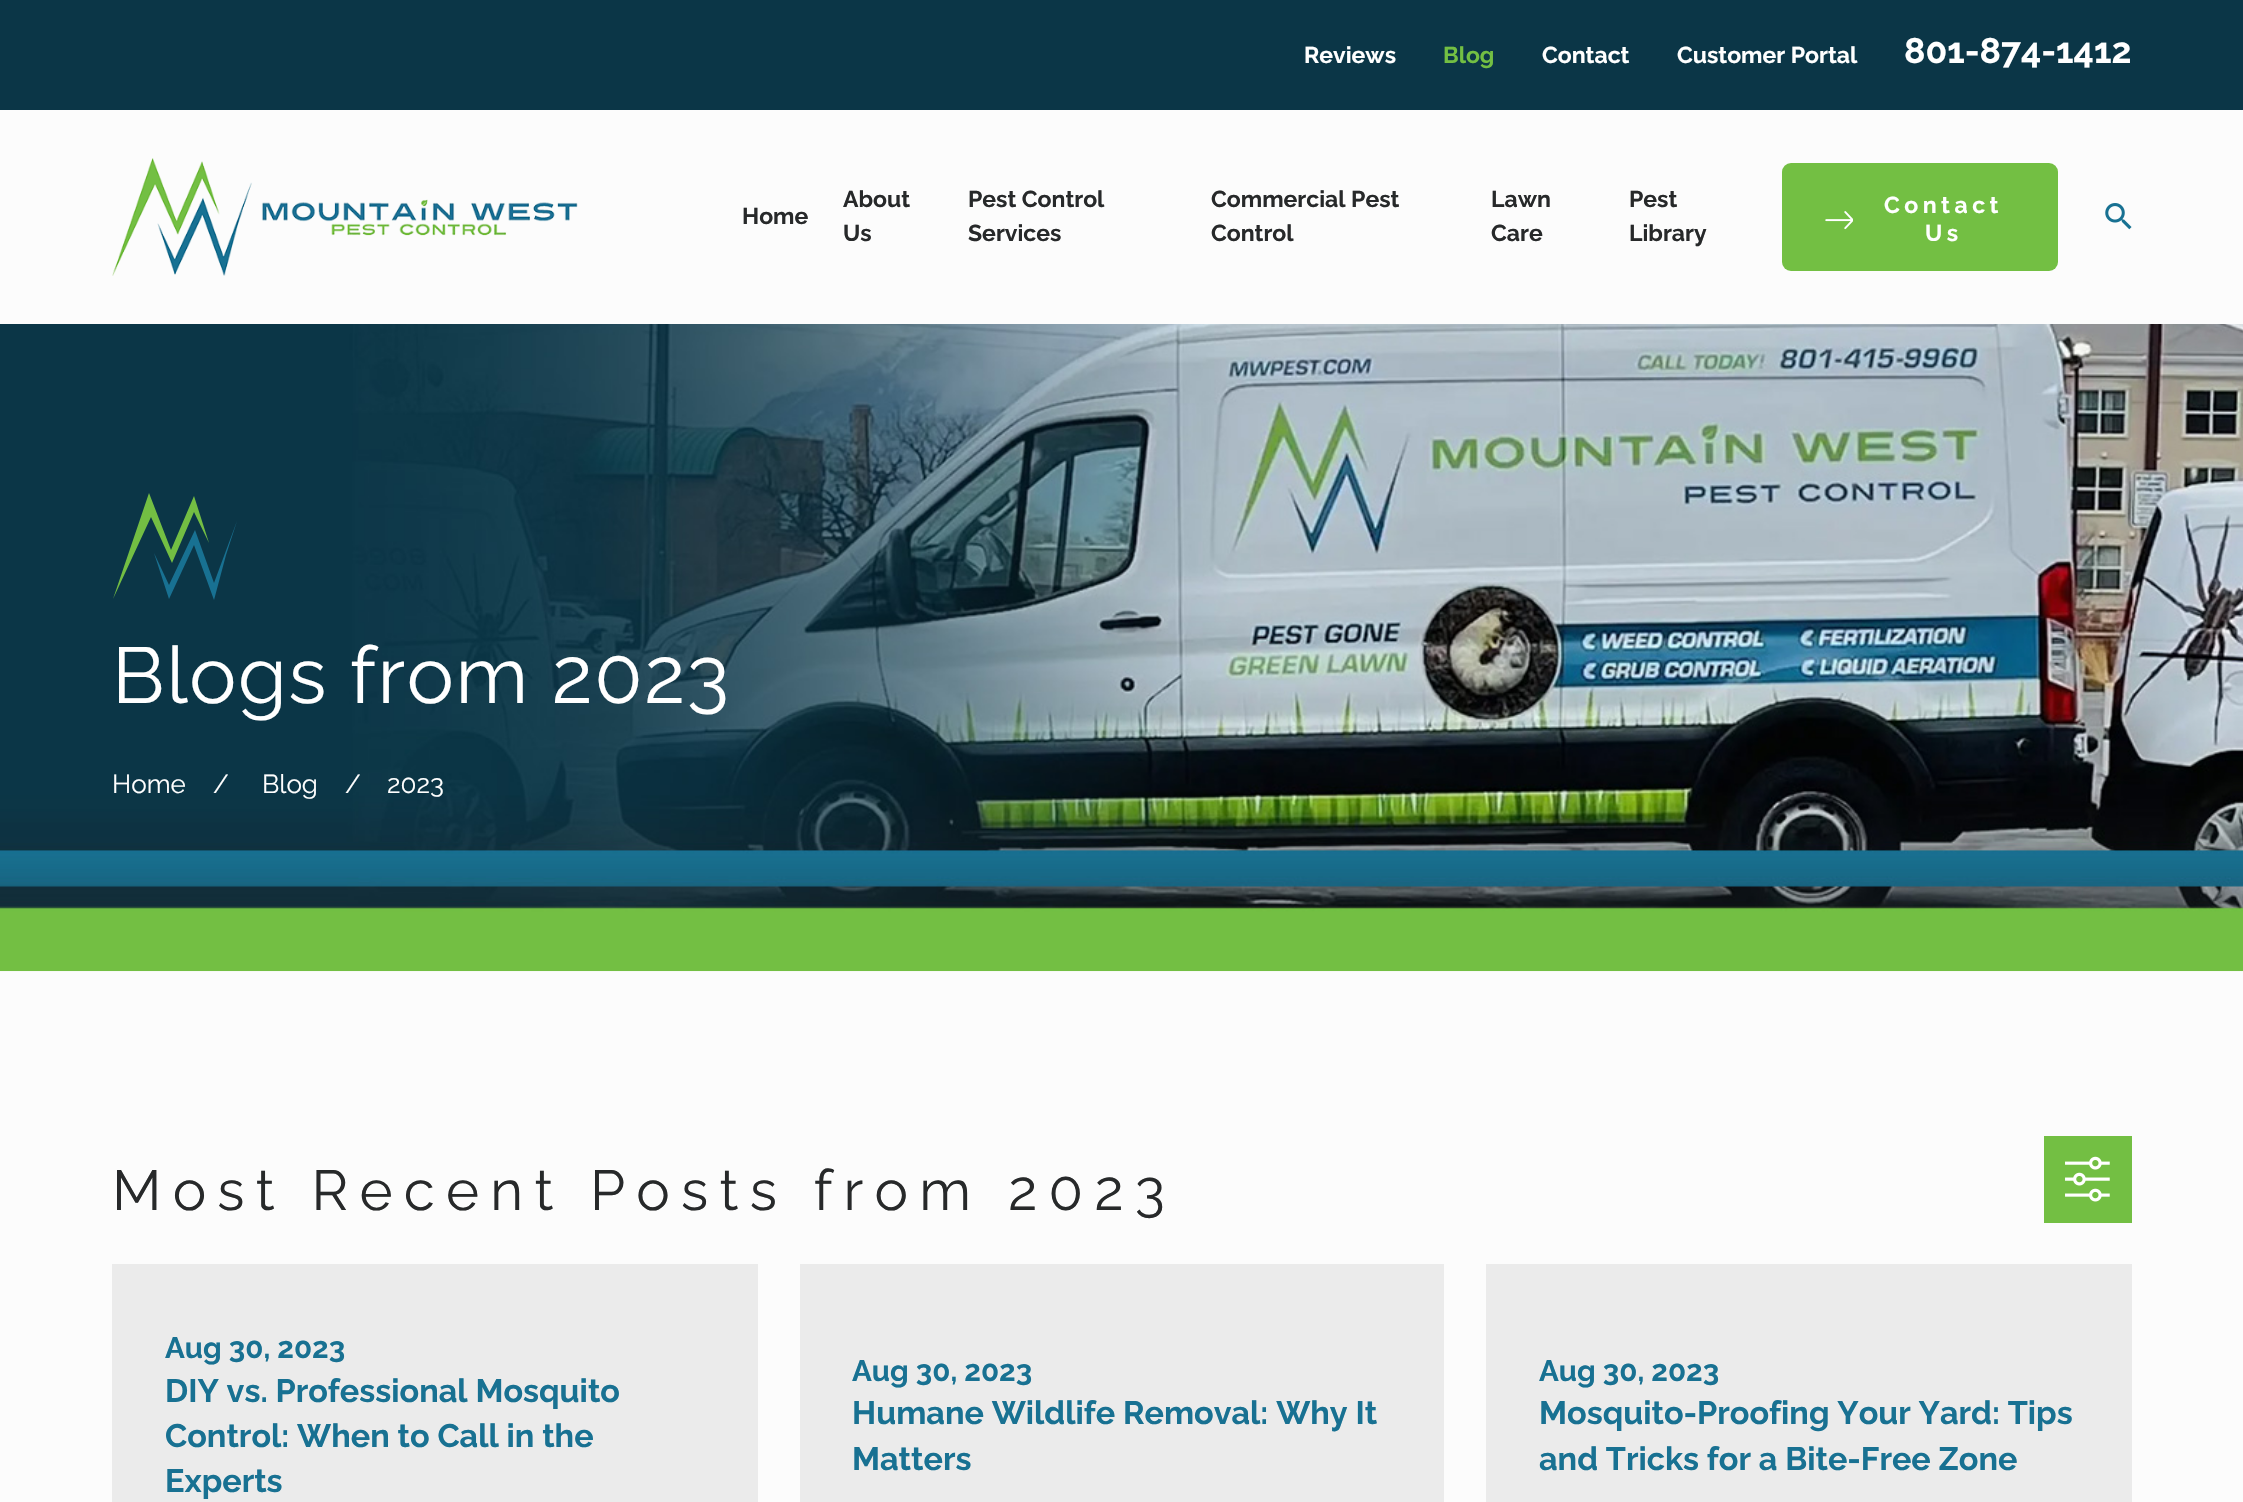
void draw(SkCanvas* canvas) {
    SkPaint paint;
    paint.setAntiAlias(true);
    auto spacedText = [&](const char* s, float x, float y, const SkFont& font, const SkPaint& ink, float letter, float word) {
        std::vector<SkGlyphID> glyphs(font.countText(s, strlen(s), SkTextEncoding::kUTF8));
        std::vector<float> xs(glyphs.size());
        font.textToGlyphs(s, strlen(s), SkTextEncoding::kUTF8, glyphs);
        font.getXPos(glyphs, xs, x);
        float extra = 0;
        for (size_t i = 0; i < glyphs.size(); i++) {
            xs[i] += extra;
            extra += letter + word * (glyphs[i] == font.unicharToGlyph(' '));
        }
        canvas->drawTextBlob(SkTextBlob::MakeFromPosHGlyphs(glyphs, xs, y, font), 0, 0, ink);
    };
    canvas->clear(0xFFFCFCFC);
    paint.setColor(0xFF0B3647);
    canvas->drawRect(SkRect::MakeXYWH(0, 0, 2243, 110), paint);
    SkFont font1(fontMgr->matchFamilyStyle("Raleway", SkFontStyle::Bold()), 23);
    font1.setSubpixel(true);
    paint.setColor(0xFFFFFFFF);
    canvas->drawString("Reviews", 1304, 63, font1, paint);
    paint.setColor(0xFF73BF43);
    canvas->drawString("Blog", 1443, 63, font1, paint);
    paint.setColor(0xFFFFFFFF);
    canvas->drawString("Contact", 1542, 63, font1, paint);
    canvas->drawString("Customer Portal", 1677, 63, font1, paint);
    SkFont font2(fontMgr->matchFamilyStyle("Raleway", SkFontStyle::Bold()), 35.5f);
    font2.setSubpixel(true);
    canvas->drawString("801-874-1412", 1904, 63, font2, paint);
    canvas->drawImageRect(SkImages::DeferredFromEncodedData(SkData::MakeFromFileName("img1.png")), SkRect::MakeXYWH(112, 158, 466, 118), SkSamplingOptions());
    paint.setColor(0xFF27292A);
    canvas->drawString("Home", 742, 224, font1, paint);
    canvas->drawString("About", 843, 207, font1, paint);
    canvas->drawString("Us", 843, 241, font1, paint);
    canvas->drawString("Pest Control", 968, 207, font1, paint);
    canvas->drawString("Services", 968, 241, font1, paint);
    canvas->drawString("Commercial Pest", 1211, 207, font1, paint);
    canvas->drawString("Control", 1211, 241, font1, paint);
    canvas->drawString("Lawn", 1491, 207, font1, paint);
    canvas->drawString("Care", 1491, 241, font1, paint);
    canvas->drawString("Pest", 1629, 207, font1, paint);
    canvas->drawString("Library", 1629, 241, font1, paint);
    paint.setColor(0xFF73BF43);
    canvas->drawRoundRect(SkRect::MakeXYWH(1782, 163, 276, 108), 9, 9, paint);
    canvas->drawImageRect(SkImages::DeferredFromEncodedData(SkData::MakeFromFileName("img2.png")), SkRect::MakeXYWH(1825, 211, 28, 19), SkSamplingOptions());
    paint.setColor(0xFFFFFFFF);
    spacedText("Contact", 1884, 213, font1, paint, 4.5f, 0);
    spacedText("Us", 1925, 241, font1, paint, 4.5f, 0);
    canvas->drawImageRect(SkImages::DeferredFromEncodedData(SkData::MakeFromFileName("img3.png")), SkRect::MakeXYWH(2105, 203, 27, 27), SkSamplingOptions());
    canvas->drawImageRect(SkImages::DeferredFromEncodedData(SkData::MakeFromFileName("img4.png")), SkRect::MakeXYWH(0, 324, 2243, 648), SkSamplingOptions());
    paint.setColor(0xFF73BE43);
    canvas->drawPath(SkPathBuilder().moveTo(209, 543).lineTo(194, 512).lineTo(172, 563).lineTo(151, 517).lineTo(113, 599).lineTo(149, 493).lineTo(171, 550).lineTo(194, 496).close().detach(), paint);
    paint.setColor(0xFF187192);
    canvas->drawPath(SkPathBuilder().moveTo(237, 521).lineTo(226, 555).lineTo(214, 600).lineTo(194, 545).lineTo(169, 599).lineTo(154, 553).lineTo(169, 585).lineTo(195, 530).lineTo(214, 583).close().detach(), paint);
    SkFont font3(fontMgr->matchFamilyStyle("Raleway", SkFontStyle::Normal()), 79);
    font3.setSubpixel(true);
    paint.setColor(0xFFFFFFFF);
    spacedText("Blogs from 2023", 112, 703, font3, paint, 1.6f, 0);
    SkFont font4(fontMgr->matchFamilyStyle("Raleway", SkFontStyle::Normal()), 26);
    font4.setSubpixel(true);
    canvas->drawString("Home", 112, 793, font4, paint);
    canvas->drawString("/", 213, 793, font4, paint);
    canvas->drawString("Blog", 262, 793, font4, paint);
    canvas->drawString("/", 345, 793, font4, paint);
    canvas->drawString("2023", 387, 793, font4, paint);
    SkFont font5(fontMgr->matchFamilyStyle("Raleway", SkFontStyle::Normal()), 56.3f);
    font5.setSubpixel(true);
    paint.setColor(0xFF27292A);
    spacedText("Most Recent Posts from 2023", 112, 1210, font5, paint, 11.25f, 0);
    paint.setColor(0xFF73BF43);
    canvas->drawRect(SkRect::MakeXYWH(2044, 1136, 88, 87), paint);
    canvas->drawImageRect(SkImages::DeferredFromEncodedData(SkData::MakeFromFileName("img5.png")), SkRect::MakeXYWH(2065, 1156, 45, 46), SkSamplingOptions());
    paint.setColor(0xFFEBEBEB);
    canvas->drawRect(SkRect::MakeXYWH(112, 1264, 646, 238), paint);
    SkFont font6(fontMgr->matchFamilyStyle("Raleway", SkFontStyle::Bold()), 29.5f);
    font6.setSubpixel(true);
    paint.setColor(0xFF187192);
    canvas->drawString("Aug 30, 2023", 165, 1358, font6, paint);
    SkFont font7(fontMgr->matchFamilyStyle("Raleway", SkFontStyle::Bold()), 32.4f);
    font7.setSubpixel(true);
    canvas->drawString("DIY vs. Professional Mosquito", 165, 1402, font7, paint);
    canvas->drawString("Control: When to Call in the", 165, 1447, font7, paint);
    canvas->drawString("Experts", 165, 1492, font7, paint);
    paint.setColor(0xFFEBEBEB);
    canvas->drawRect(SkRect::MakeXYWH(800, 1264, 644, 238), paint);
    paint.setColor(0xFF187192);
    canvas->drawString("Aug 30, 2023", 852, 1381, font6, paint);
    canvas->drawString("Humane Wildlife Removal: Why It", 852, 1424, font7, paint);
    canvas->drawString("Matters", 852, 1470, font7, paint);
    paint.setColor(0xFFEBEBEB);
    canvas->drawRect(SkRect::MakeXYWH(1486, 1264, 646, 238), paint);
    paint.setColor(0xFF187192);
    canvas->drawString("Aug 30, 2023", 1539, 1381, font6, paint);
    canvas->drawString("Mosquito-Proofing Your Yard: Tips", 1539, 1424, font7, paint);
    canvas->drawString("and Tricks for a Bite-Free Zone", 1539, 1470, font7, paint);
}
